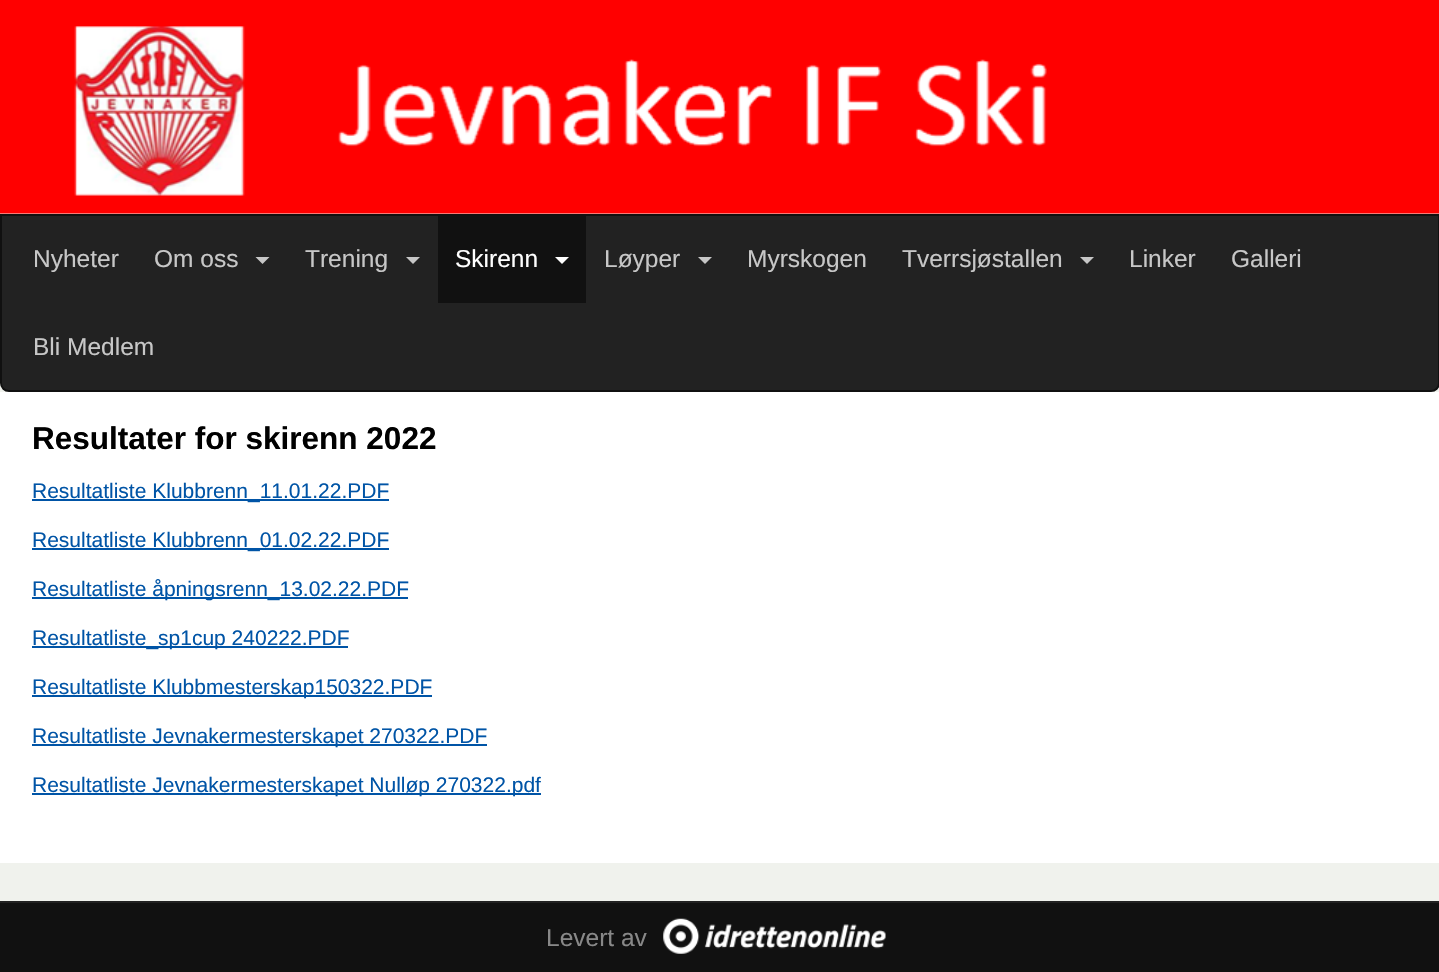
void draw(SkCanvas* canvas) {
    SkPaint paint;
    paint.setAntiAlias(true);
    canvas->clear(0xFFF0F2ED);
    canvas->drawImageRect(SkImages::DeferredFromEncodedData(SkData::MakeFromFileName("img1.png")), SkRect::MakeXYWH(0, 0, 1439, 214), SkSamplingOptions());
    paint.setColor(0xFF222222);
    canvas->drawPath(SkPathBuilder().moveTo(1, 215).lineTo(1439, 215).lineTo(1439, 383).cubicTo(1439, 387.5f, 1435.5f, 391, 1431, 391).lineTo(9, 391).cubicTo(4.5f, 391, 1, 387.5f, 1, 383).close().detach(), paint);
    paint.setStyle(SkPaint::kStroke_Style);
    paint.setStrokeWidth(2);
    paint.setColor(0xFF101010);
    canvas->drawPath(SkPathBuilder().moveTo(1, 215).lineTo(1439, 215).lineTo(1439, 383).cubicTo(1439, 387.5f, 1435.5f, 391, 1431, 391).lineTo(9, 391).cubicTo(4.5f, 391, 1, 387.5f, 1, 383).close().detach(), paint);
    SkFont font1(fontMgr->matchFamilyStyle("Liberation Sans", SkFontStyle::Normal()), 24.5f);
    font1.setSubpixel(true);
    paint.setStyle(SkPaint::kFill_Style);
    paint.setColor(0xFFC7C7C7);
    canvas->drawString("Nyheter", 33, 267, font1, paint);
    canvas->drawString("Om oss", 154, 267, font1, paint);
    canvas->drawPath(SkPathBuilder().moveTo(255.5f, 257).lineTo(269.5f, 257).lineTo(262.5f, 264).close().detach(), paint);
    canvas->drawString("Trening", 305, 267, font1, paint);
    canvas->drawPath(SkPathBuilder().moveTo(406, 257).lineTo(420, 257).lineTo(413, 264).close().detach(), paint);
    paint.setColor(0xFF111111);
    canvas->drawRect(SkRect::MakeXYWH(438, 216, 148, 87), paint);
    paint.setColor(0xFFFFFFFF);
    canvas->drawString("Skirenn", 455, 267, font1, paint);
    canvas->drawPath(SkPathBuilder().moveTo(555, 257).lineTo(569, 257).lineTo(562, 264).close().detach(), paint);
    paint.setColor(0xFFC7C7C7);
    canvas->drawString("Løyper", 604, 267, font1, paint);
    canvas->drawPath(SkPathBuilder().moveTo(698, 257).lineTo(712, 257).lineTo(705, 264).close().detach(), paint);
    canvas->drawString("Myrskogen", 747, 267, font1, paint);
    canvas->drawString("Tverrsjøstallen", 902, 267, font1, paint);
    canvas->drawPath(SkPathBuilder().moveTo(1080, 257).lineTo(1094, 257).lineTo(1087, 264).close().detach(), paint);
    canvas->drawString("Linker", 1129, 267, font1, paint);
    canvas->drawString("Galleri", 1231, 267, font1, paint);
    canvas->drawString("Bli Medlem", 33, 355, font1, paint);
    paint.setColor(0xFFFFFFFF);
    canvas->drawRect(SkRect::MakeXYWH(0, 392, 1439, 471), paint);
    SkFont font2(fontMgr->matchFamilyStyle("Liberation Sans", SkFontStyle::Bold()), 31.5f);
    font2.setSubpixel(true);
    paint.setColor(0xFF000000);
    canvas->drawString("Resultater for skirenn 2022", 32, 449, font2, paint);
    paint.setColor(0xFF0054A6);
    canvas->drawRect(SkRect::MakeXYWH(32, 499, 357, 2), paint);
    SkFont font3(fontMgr->matchFamilyStyle("Liberation Sans", SkFontStyle::Normal()), 21);
    font3.setSubpixel(true);
    canvas->drawString("Resultatliste Klubbrenn_11.01.22.PDF", 32, 498, font3, paint);
    canvas->drawRect(SkRect::MakeXYWH(32, 548, 357, 2), paint);
    canvas->drawString("Resultatliste Klubbrenn_01.02.22.PDF", 32, 547, font3, paint);
    canvas->drawRect(SkRect::MakeXYWH(32, 597, 376, 2), paint);
    canvas->drawString("Resultatliste åpningsrenn_13.02.22.PDF", 32, 596, font3, paint);
    canvas->drawRect(SkRect::MakeXYWH(32, 646, 316, 2), paint);
    canvas->drawString("Resultatliste_sp1cup 240222.PDF", 32, 645, font3, paint);
    canvas->drawRect(SkRect::MakeXYWH(32, 695, 400, 2), paint);
    canvas->drawString("Resultatliste Klubbmesterskap150322.PDF", 32, 694, font3, paint);
    canvas->drawRect(SkRect::MakeXYWH(32, 744, 455, 2), paint);
    canvas->drawString("Resultatliste Jevnakermesterskapet 270322.PDF", 32, 743, font3, paint);
    canvas->drawRect(SkRect::MakeXYWH(32, 793, 509, 2), paint);
    canvas->drawString("Resultatliste Jevnakermesterskapet Nulløp 270322.pdf", 32, 792, font3, paint);
    paint.setColor(0xFF111111);
    canvas->drawRect(SkRect::MakeXYWH(0, 903, 1439, 69), paint);
    paint.setColor(0xFF222222);
    canvas->drawRect(SkRect::MakeXYWH(0, 901, 1439, 2), paint);
    paint.setColor(0xFF888888);
    canvas->drawString("Levert av", 546, 946, font1, paint);
    canvas->drawImageRect(SkImages::DeferredFromEncodedData(SkData::MakeFromFileName("img2.png")), SkRect::MakeXYWH(663, 918, 223, 36), SkSamplingOptions());
}
